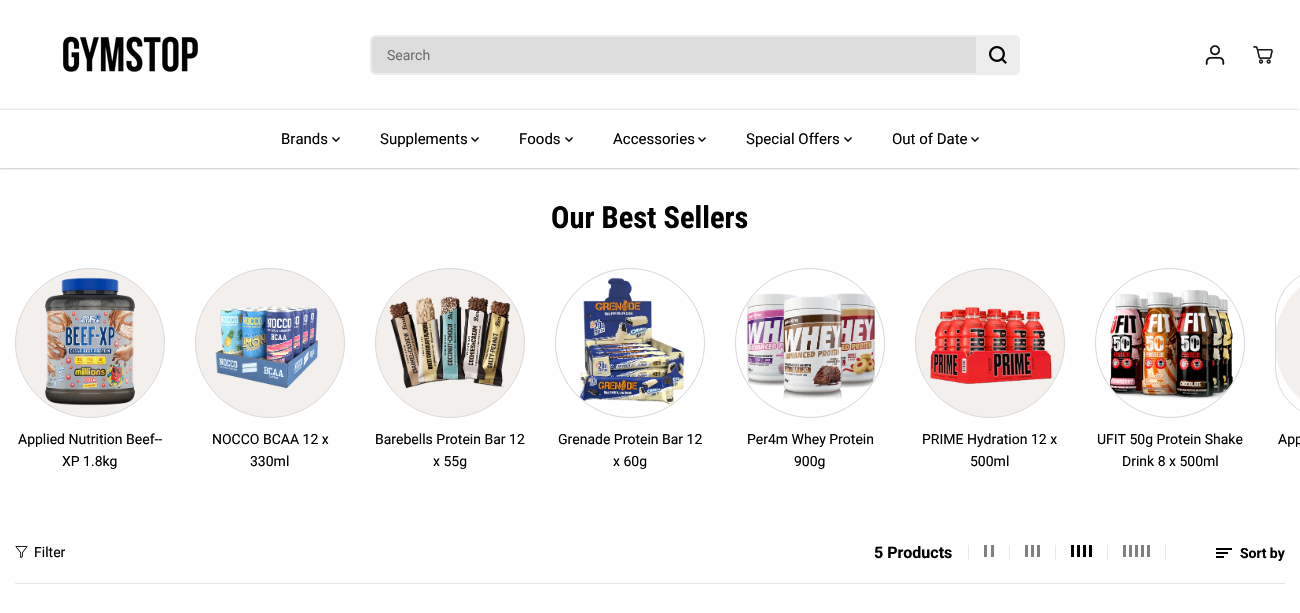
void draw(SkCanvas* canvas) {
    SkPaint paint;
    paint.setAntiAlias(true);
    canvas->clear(0xFFFFFFFF);
    canvas->save();
    canvas->clipRect(SkRect::MakeXYWH(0, 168, 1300, 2));
    paint.setColor(0x0D000000);
    paint.setMaskFilter(SkMaskFilter::MakeBlur(kNormal_SkBlurStyle, 1));
    canvas->drawRect(SkRect::MakeXYWH(0, 2, 1300, 168), paint);
    paint.setMaskFilter(nullptr);
    canvas->restore();
    canvas->drawImageRect(SkImages::DeferredFromEncodedData(SkData::MakeFromFileName("img1.png")), SkRect::MakeXYWH(63, 36, 135, 36), SkSamplingOptions());
    paint.setColor(0xFFDDDDDD);
    canvas->drawRoundRect(SkRect::MakeXYWH(371, 36, 648, 38), 5, 5, paint);
    paint.setStyle(SkPaint::kStroke_Style);
    paint.setStrokeWidth(2);
    paint.setColor(0xFFEDEDED);
    canvas->drawRoundRect(SkRect::MakeXYWH(371, 36, 648, 38), 5, 5, paint);
    SkFont font1(fontMgr->matchFamilyStyle("Roboto", SkFontStyle::Normal()), 14);
    font1.setSubpixel(true);
    paint.setStyle(SkPaint::kFill_Style);
    paint.setColor(0xFF6F6F6F);
    canvas->drawString("Search", 387, 60, font1, paint);
    paint.setColor(0xFFEDEDED);
    canvas->drawPath(SkPathBuilder().moveTo(976, 35).lineTo(1014, 35).cubicTo(1017.5f, 35, 1020, 37.5f, 1020, 41).lineTo(1020, 69).cubicTo(1020, 72.5f, 1017.5f, 75, 1014, 75).lineTo(976, 75).close().detach(), paint);
    canvas->drawImageRect(SkImages::DeferredFromEncodedData(SkData::MakeFromFileName("img2.png")), SkRect::MakeXYWH(989, 46, 18, 18), SkSamplingOptions());
    canvas->drawImageRect(SkImages::DeferredFromEncodedData(SkData::MakeFromFileName("img3.png")), SkRect::MakeXYWH(1205, 45, 20, 20), SkSamplingOptions());
    canvas->drawImageRect(SkImages::DeferredFromEncodedData(SkData::MakeFromFileName("img4.png")), SkRect::MakeXYWH(1253, 46, 20, 18), SkSamplingOptions());
    canvas->save();
    canvas->clipPath(SkPathBuilder(SkPathFillType::kEvenOdd).moveTo(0, 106).lineTo(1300, 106).lineTo(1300, 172).lineTo(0, 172).close().moveTo(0, 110).lineTo(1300, 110).lineTo(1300, 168).lineTo(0, 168).close().detach(), true);
    paint.setColor(0x4D000000);
    paint.setMaskFilter(SkMaskFilter::MakeBlur(kNormal_SkBlurStyle, 1));
    canvas->drawRect(SkRect::MakeXYWH(-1, 110, 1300, 58), paint);
    paint.setMaskFilter(nullptr);
    canvas->restore();
    SkFont font2(fontMgr->matchFamilyStyle("Roboto", SkFontStyle::Normal()), 15);
    font2.setSubpixel(true);
    paint.setColor(0xFF000000);
    canvas->drawString("Brands", 281, 144, font2, paint);
    canvas->drawImageRect(SkImages::DeferredFromEncodedData(SkData::MakeFromFileName("img5.png")), SkRect::MakeXYWH(332, 137, 8, 5), SkSamplingOptions());
    canvas->drawString("Supplements", 380, 144, font2, paint);
    canvas->drawImageRect(SkImages::DeferredFromEncodedData(SkData::MakeFromFileName("img5.png")), SkRect::MakeXYWH(471, 137, 8, 5), SkSamplingOptions());
    canvas->drawString("Foods", 519, 144, font2, paint);
    canvas->drawImageRect(SkImages::DeferredFromEncodedData(SkData::MakeFromFileName("img5.png")), SkRect::MakeXYWH(565, 137, 8, 5), SkSamplingOptions());
    canvas->drawString("Accessories", 613, 144, font2, paint);
    canvas->drawImageRect(SkImages::DeferredFromEncodedData(SkData::MakeFromFileName("img5.png")), SkRect::MakeXYWH(698, 137, 8, 5), SkSamplingOptions());
    canvas->drawString("Special Offers", 746, 144, font2, paint);
    canvas->drawImageRect(SkImages::DeferredFromEncodedData(SkData::MakeFromFileName("img5.png")), SkRect::MakeXYWH(844, 137, 8, 5), SkSamplingOptions());
    canvas->drawString("Out of Date", 892, 144, font2, paint);
    canvas->drawImageRect(SkImages::DeferredFromEncodedData(SkData::MakeFromFileName("img5.png")), SkRect::MakeXYWH(971, 137, 8, 5), SkSamplingOptions());
    SkFont font3(fontMgr->matchFamilyStyle("Roboto Condensed", SkFontStyle::Bold()), 30.5f);
    font3.setSubpixel(true);
    canvas->drawString("Our Best Sellers", 551, 228, font3, paint);
    paint.setColor(0xFFF3EFEC);
    canvas->drawCircle(90, 343, 74.5f, paint);
    paint.setStyle(SkPaint::kStroke_Style);
    paint.setStrokeWidth(1);
    paint.setColor(0xFFD9D9D9);
    canvas->drawCircle(90, 343, 74.5f, paint);
    canvas->drawImageRect(SkImages::DeferredFromEncodedData(SkData::MakeFromFileName("img6.png")), SkRect::MakeXYWH(45, 277, 90, 129), SkSamplingOptions());
    paint.setStyle(SkPaint::kFill_Style);
    paint.setColor(0xFF000000);
    canvas->drawString("Applied Nutrition Beef--", 18, 444, font1, paint);
    canvas->drawString("XP 1.8kg", 62, 466, font1, paint);
    paint.setColor(0xFFF3EFEC);
    canvas->drawCircle(270, 343, 74.5f, paint);
    paint.setStyle(SkPaint::kStroke_Style);
    paint.setColor(0xFFD9D9D9);
    canvas->drawCircle(270, 343, 74.5f, paint);
    canvas->drawImageRect(SkImages::DeferredFromEncodedData(SkData::MakeFromFileName("img7.png")), SkRect::MakeXYWH(215, 306, 103, 83), SkSamplingOptions());
    paint.setStyle(SkPaint::kFill_Style);
    paint.setColor(0xFF000000);
    canvas->drawString("NOCCO BCAA 12 x", 212, 444, font1, paint);
    canvas->drawString("330ml", 250, 466, font1, paint);
    paint.setColor(0xFFF3EFEC);
    canvas->drawCircle(450, 343, 74.5f, paint);
    paint.setStyle(SkPaint::kStroke_Style);
    paint.setColor(0xFFD9D9D9);
    canvas->drawCircle(450, 343, 74.5f, paint);
    canvas->drawImageRect(SkImages::DeferredFromEncodedData(SkData::MakeFromFileName("img8.png")), SkRect::MakeXYWH(389, 296, 122, 93), SkSamplingOptions());
    paint.setStyle(SkPaint::kFill_Style);
    paint.setColor(0xFF000000);
    canvas->drawString("Barebells Protein Bar 12", 375, 444, font1, paint);
    canvas->drawString("x 55g", 433, 466, font1, paint);
    paint.setColor(0xFFF3EFEC);
    canvas->drawCircle(630, 343, 74.5f, paint);
    paint.setStyle(SkPaint::kStroke_Style);
    paint.setColor(0xFFD9D9D9);
    canvas->drawCircle(630, 343, 74.5f, paint);
    canvas->drawImageRect(SkImages::DeferredFromEncodedData(SkData::MakeFromFileName("img9.png")), SkRect::MakeXYWH(556, 269, 148, 148), SkSamplingOptions());
    paint.setStyle(SkPaint::kFill_Style);
    paint.setColor(0xFF000000);
    canvas->drawString("Grenade Protein Bar 12", 558, 444, font1, paint);
    canvas->drawString("x 60g", 613, 466, font1, paint);
    paint.setColor(0xFFF3EFEC);
    canvas->drawCircle(810, 343, 74.5f, paint);
    paint.setStyle(SkPaint::kStroke_Style);
    paint.setColor(0xFFD9D9D9);
    canvas->drawCircle(810, 343, 74.5f, paint);
    canvas->drawImageRect(SkImages::DeferredFromEncodedData(SkData::MakeFromFileName("img10.png")), SkRect::MakeXYWH(736, 269, 148, 148), SkSamplingOptions());
    paint.setStyle(SkPaint::kFill_Style);
    paint.setColor(0xFF000000);
    canvas->drawString("Per4m Whey Protein", 747, 444, font1, paint);
    canvas->drawString("900g", 794, 466, font1, paint);
    paint.setColor(0xFFF3EFEC);
    canvas->drawCircle(990, 343, 74.5f, paint);
    paint.setStyle(SkPaint::kStroke_Style);
    paint.setColor(0xFFD9D9D9);
    canvas->drawCircle(990, 343, 74.5f, paint);
    canvas->drawImageRect(SkImages::DeferredFromEncodedData(SkData::MakeFromFileName("img11.png")), SkRect::MakeXYWH(930, 307, 122, 77), SkSamplingOptions());
    paint.setStyle(SkPaint::kFill_Style);
    paint.setColor(0xFF000000);
    canvas->drawString("PRIME Hydration 12 x", 922, 444, font1, paint);
    canvas->drawString("500ml", 970, 466, font1, paint);
    paint.setColor(0xFFF3EFEC);
    canvas->drawCircle(1170, 343, 74.5f, paint);
    paint.setStyle(SkPaint::kStroke_Style);
    paint.setColor(0xFFD9D9D9);
    canvas->drawCircle(1170, 343, 74.5f, paint);
    canvas->drawImageRect(SkImages::DeferredFromEncodedData(SkData::MakeFromFileName("img12.png")), SkRect::MakeXYWH(1096, 269, 148, 148), SkSamplingOptions());
    paint.setStyle(SkPaint::kFill_Style);
    paint.setColor(0xFF000000);
    canvas->drawString("UFIT 50g Protein Shake", 1097, 444, font1, paint);
    canvas->drawString("Drink 8 x 500ml", 1122, 466, font1, paint);
    paint.setColor(0xFFF3EFEC);
    canvas->drawPath(SkPathBuilder().moveTo(1350, 268).lineTo(1300, 268).lineTo(1300, 418).lineTo(1350, 418).cubicTo(1308.5f, 418, 1275, 384.5f, 1275, 343).cubicTo(1275, 301.5f, 1308.5f, 268, 1350, 268).close().detach(), paint);
    paint.setStyle(SkPaint::kStroke_Style);
    paint.setColor(0xFFD9D9D9);
    canvas->drawRoundRect(SkRect::MakeXYWH(1275.5f, 268.5f, 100, 149), 74.5f, 74.5f, paint);
    paint.setStyle(SkPaint::kFill_Style);
    paint.setColor(0xFF000000);
    canvas->drawString("App", 1278, 444, font1, paint);
    paint.setColor(0xFFE6E6E6);
    canvas->drawRect(SkRect::MakeXYWH(15, 583, 1270, 1), paint);
    canvas->drawImageRect(SkImages::DeferredFromEncodedData(SkData::MakeFromFileName("img13.png")), SkRect::MakeXYWH(15, 546, 13, 12), SkSamplingOptions());
    paint.setColor(0xFF000000);
    canvas->drawString("Filter", 34, 557, font1, paint);
    SkFont font4(fontMgr->matchFamilyStyle("Roboto", SkFontStyle::Bold()), 16);
    font4.setSubpixel(true);
    canvas->drawString("5 Products", 874, 558, font4, paint);
    paint.setColor(0xFFE6E6E6);
    canvas->drawRect(SkRect::MakeXYWH(1009, 545, 1, 15), paint);
    canvas->drawRect(SkRect::MakeXYWH(968, 545, 1, 15), paint);
    paint.setColor(0xFF808080);
    canvas->drawRect(SkRect::MakeXYWH(984, 545, 3, 12), paint);
    canvas->drawRect(SkRect::MakeXYWH(991, 545, 3, 12), paint);
    paint.setColor(0xFFE6E6E6);
    canvas->drawRect(SkRect::MakeXYWH(1055, 545, 1, 15), paint);
    paint.setColor(0xFF808080);
    canvas->drawRect(SkRect::MakeXYWH(1025, 545, 3, 12), paint);
    canvas->drawRect(SkRect::MakeXYWH(1031, 545, 3, 12), paint);
    canvas->drawRect(SkRect::MakeXYWH(1037, 545, 3, 12), paint);
    paint.setColor(0xFFE6E6E6);
    canvas->drawRect(SkRect::MakeXYWH(1107, 545, 1, 15), paint);
    paint.setColor(0xFF000000);
    canvas->drawRect(SkRect::MakeXYWH(1071, 545, 3, 12), paint);
    canvas->drawRect(SkRect::MakeXYWH(1077, 545, 3, 12), paint);
    canvas->drawRect(SkRect::MakeXYWH(1083, 545, 3, 12), paint);
    canvas->drawRect(SkRect::MakeXYWH(1089, 545, 3, 12), paint);
    paint.setColor(0xFFE6E6E6);
    canvas->drawRect(SkRect::MakeXYWH(1165, 545, 1, 15), paint);
    paint.setColor(0xFF808080);
    canvas->drawRect(SkRect::MakeXYWH(1123, 545, 3, 12), paint);
    canvas->drawRect(SkRect::MakeXYWH(1129, 545, 3, 12), paint);
    canvas->drawRect(SkRect::MakeXYWH(1135, 545, 3, 12), paint);
    canvas->drawRect(SkRect::MakeXYWH(1141, 545, 3, 12), paint);
    canvas->drawRect(SkRect::MakeXYWH(1147, 545, 3, 12), paint);
    canvas->drawImageRect(SkImages::DeferredFromEncodedData(SkData::MakeFromFileName("img14.png")), SkRect::MakeXYWH(1216, 548, 16, 10), SkSamplingOptions());
    SkFont font5(fontMgr->matchFamilyStyle("Roboto", SkFontStyle::Bold()), 14);
    font5.setSubpixel(true);
    paint.setColor(0xFF000000);
    canvas->drawString("Sort by", 1240, 558, font5, paint);
}
